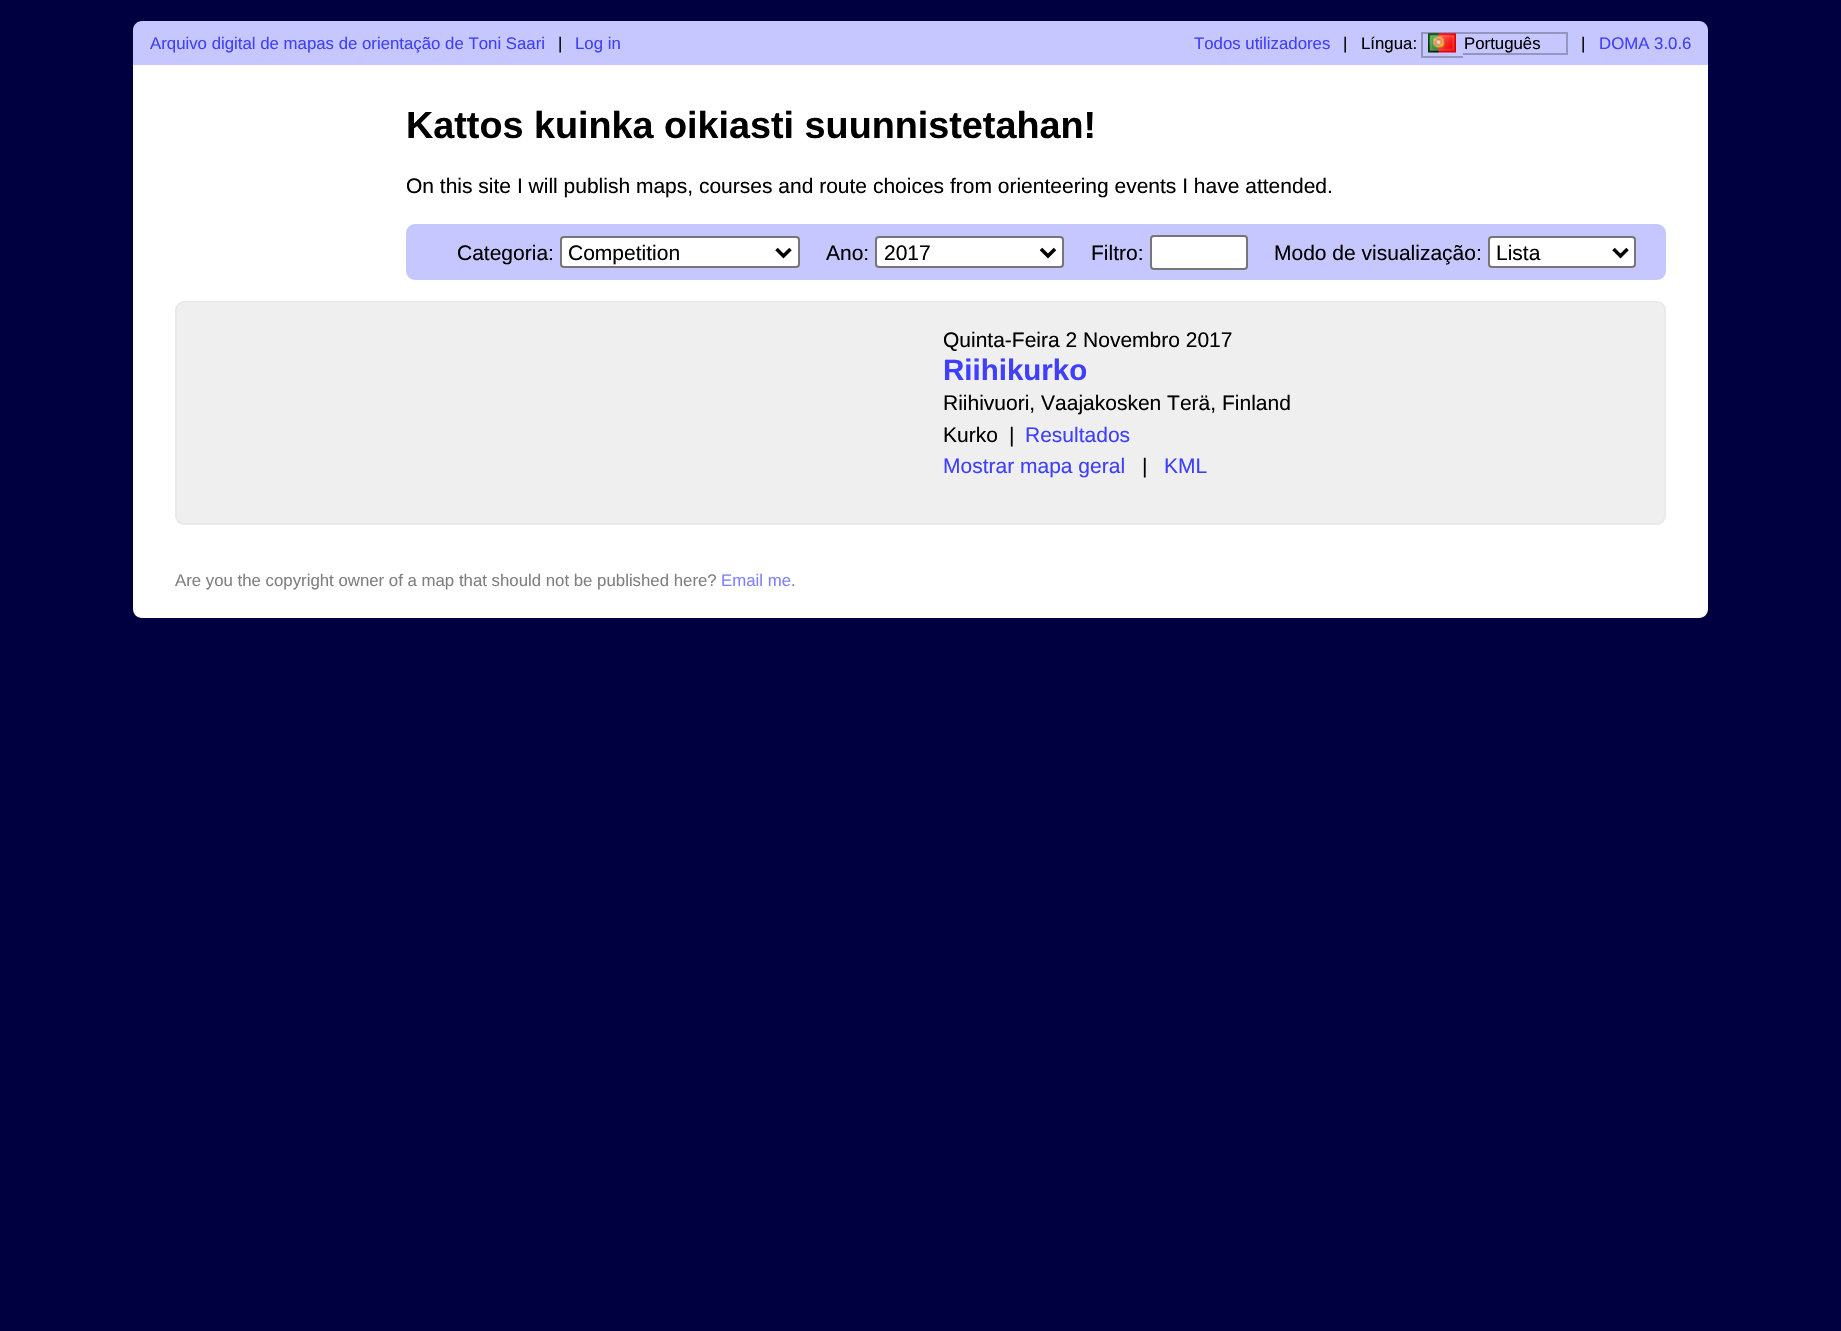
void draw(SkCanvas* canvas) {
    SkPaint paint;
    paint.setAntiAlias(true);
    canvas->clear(0xFF000040);
    paint.setColor(0xFFC7C7FF);
    canvas->drawPath(SkPathBuilder().moveTo(142, 21).lineTo(1699, 21).cubicTo(1704, 21, 1708, 25, 1708, 30).lineTo(1708, 65).lineTo(133, 65).lineTo(133, 30).cubicTo(133, 25, 137, 21, 142, 21).close().detach(), paint);
    SkFont font1(fontMgr->matchFamilyStyle("Liberation Sans", SkFontStyle::Normal()), 16.8f);
    font1.setSubpixel(true);
    paint.setColor(0xFF3F3FFF);
    canvas->drawString("Arquivo digital de mapas de orientação de Toni Saari", 150, 49, font1, paint);
    paint.setColor(0xFF000000);
    canvas->drawString("|", 558, 49, font1, paint);
    paint.setColor(0xFF3F3FFF);
    canvas->drawString("Log in", 575, 49, font1, paint);
    canvas->drawString("Todos utilizadores", 1194, 49, font1, paint);
    paint.setColor(0xFF000000);
    canvas->drawString("|", 1343, 49, font1, paint);
    canvas->drawString("Língua:", 1361, 49, font1, paint);
    paint.setColor(0xFF9595BF);
    canvas->drawRect(SkRect::MakeXYWH(1421, 32, 147, 2), paint);
    canvas->drawImageRect(SkImages::DeferredFromEncodedData(SkData::MakeFromFileName("img1.png")), SkRect::MakeXYWH(1428, 33, 28, 20), SkSamplingOptions());
    paint.setColor(0xFF000000);
    canvas->drawString("Português", 1464, 49, font1, paint);
    paint.setColor(0xFF9595BF);
    canvas->drawRect(SkRect::MakeXYWH(1421, 56, 42, 2), paint);
    canvas->drawRect(SkRect::MakeXYWH(1421, 32, 2, 26), paint);
    canvas->drawRect(SkRect::MakeXYWH(1566, 32, 2, 22), paint);
    canvas->drawRect(SkRect::MakeXYWH(1463, 53, 105, 2), paint);
    paint.setColor(0xFF000000);
    canvas->drawString("|", 1581, 49, font1, paint);
    paint.setColor(0xFF3F3FFF);
    canvas->drawString("DOMA 3.0.6", 1599, 49, font1, paint);
    paint.setColor(0xFFFFFFFF);
    canvas->drawPath(SkPathBuilder().moveTo(133, 65).lineTo(1708, 65).lineTo(1708, 609).cubicTo(1708, 614, 1704, 618, 1699, 618).lineTo(142, 618).cubicTo(137, 618, 133, 614, 133, 609).close().detach(), paint);
    SkFont font2(fontMgr->matchFamilyStyle("Liberation Sans", SkFontStyle::Bold()), 37.75f);
    font2.setSubpixel(true);
    paint.setColor(0xFF000000);
    canvas->drawString("Kattos kuinka oikiasti suunnistetahan!", 406, 138, font2, paint);
    SkFont font3(fontMgr->matchFamilyStyle("Liberation Sans", SkFontStyle::Normal()), 21);
    font3.setSubpixel(true);
    canvas->drawString("On this site I will publish maps, courses and route choices from orienteering events I have attended.", 406, 193, font3, paint);
    paint.setColor(0xFFC7C7FF);
    canvas->drawRoundRect(SkRect::MakeXYWH(406, 224, 1260, 56), 9, 9, paint);
    paint.setColor(0xFF000000);
    canvas->drawString("Categoria:", 457, 260, font3, paint);
    paint.setColor(0xFFFFFFFF);
    canvas->drawRoundRect(SkRect::MakeXYWH(561, 237, 238, 30), 3, 3, paint);
    paint.setStyle(SkPaint::kStroke_Style);
    paint.setStrokeWidth(2);
    paint.setColor(0xFF767676);
    canvas->drawRoundRect(SkRect::MakeXYWH(561, 237, 238, 30), 3, 3, paint);
    paint.setStrokeWidth(3.5f);
    paint.setColor(0xFF000000);
    canvas->drawPath(SkPathBuilder().moveTo(776.5f, 249).lineTo(783.5f, 256).lineTo(790.5f, 249).detach(), paint);
    paint.setStyle(SkPaint::kFill_Style);
    canvas->drawString("Competition", 568, 260, font3, paint);
    canvas->drawString("Ano:", 826, 260, font3, paint);
    paint.setColor(0xFFFFFFFF);
    canvas->drawRoundRect(SkRect::MakeXYWH(876, 237, 187, 30), 3, 3, paint);
    paint.setStyle(SkPaint::kStroke_Style);
    paint.setStrokeWidth(2);
    paint.setColor(0xFF767676);
    canvas->drawRoundRect(SkRect::MakeXYWH(876, 237, 187, 30), 3, 3, paint);
    paint.setStrokeWidth(3.5f);
    paint.setColor(0xFF000000);
    canvas->drawPath(SkPathBuilder().moveTo(1041, 249).lineTo(1048, 256).lineTo(1055, 249).detach(), paint);
    paint.setStyle(SkPaint::kFill_Style);
    canvas->drawString("2017", 884, 260, font3, paint);
    canvas->drawString("Filtro:", 1091, 260, font3, paint);
    paint.setColor(0xFFFFFFFF);
    canvas->drawRoundRect(SkRect::MakeXYWH(1151, 236, 96, 33), 3, 3, paint);
    paint.setStyle(SkPaint::kStroke_Style);
    paint.setStrokeWidth(2);
    paint.setColor(0xFF767676);
    canvas->drawRoundRect(SkRect::MakeXYWH(1151, 236, 96, 33), 3, 3, paint);
    paint.setStyle(SkPaint::kFill_Style);
    paint.setColor(0xFF000000);
    canvas->drawString("Modo de visualização:", 1274, 260, font3, paint);
    paint.setColor(0xFFFFFFFF);
    canvas->drawRoundRect(SkRect::MakeXYWH(1489, 237, 146, 30), 3, 3, paint);
    paint.setStyle(SkPaint::kStroke_Style);
    paint.setColor(0xFF767676);
    canvas->drawRoundRect(SkRect::MakeXYWH(1489, 237, 146, 30), 3, 3, paint);
    paint.setStrokeWidth(3.5f);
    paint.setColor(0xFF000000);
    canvas->drawPath(SkPathBuilder().moveTo(1613.5f, 249).lineTo(1620.5f, 256).lineTo(1627.5f, 249).detach(), paint);
    paint.setStyle(SkPaint::kFill_Style);
    canvas->drawString("Lista", 1496, 260, font3, paint);
    paint.setColor(0xFFEFEFEF);
    canvas->drawRoundRect(SkRect::MakeXYWH(176, 302, 1489, 222), 8, 8, paint);
    paint.setStyle(SkPaint::kStroke_Style);
    paint.setStrokeWidth(2);
    paint.setColor(0xFFEAEAEA);
    canvas->drawRoundRect(SkRect::MakeXYWH(176, 302, 1489, 222), 8, 8, paint);
    paint.setStyle(SkPaint::kFill_Style);
    paint.setColor(0xFF000000);
    canvas->drawString("Quinta-Feira 2 Novembro 2017", 943, 347, font3, paint);
    SkFont font4(fontMgr->matchFamilyStyle("Liberation Sans", SkFontStyle::Bold()), 29.5f);
    font4.setSubpixel(true);
    paint.setColor(0xFF3F3FFF);
    canvas->drawString("Riihikurko", 943, 380, font4, paint);
    paint.setColor(0xFF000000);
    canvas->drawString("Riihivuori, Vaajakosken Terä, Finland", 943, 410, font3, paint);
    canvas->drawString("Kurko", 943, 442, font3, paint);
    canvas->drawString("|", 1009, 442, font3, paint);
    paint.setColor(0xFF3F3FFF);
    canvas->drawString("Resultados", 1025, 442, font3, paint);
    canvas->drawString("Mostrar mapa geral", 943, 473, font3, paint);
    paint.setColor(0xFF000000);
    canvas->drawString("|", 1142, 473, font3, paint);
    paint.setColor(0xFF3F3FFF);
    canvas->drawString("KML", 1164, 473, font3, paint);
    paint.setColor(0xFF7F7F7F);
    canvas->drawString("Are you the copyright owner of a map that should not be published here?", 175, 586, font1, paint);
    paint.setColor(0xFF7F7FFF);
    canvas->drawString("Email me", 721, 586, font1, paint);
    paint.setColor(0xFF7F7F7F);
    canvas->drawString(".", 791, 586, font1, paint);
}
